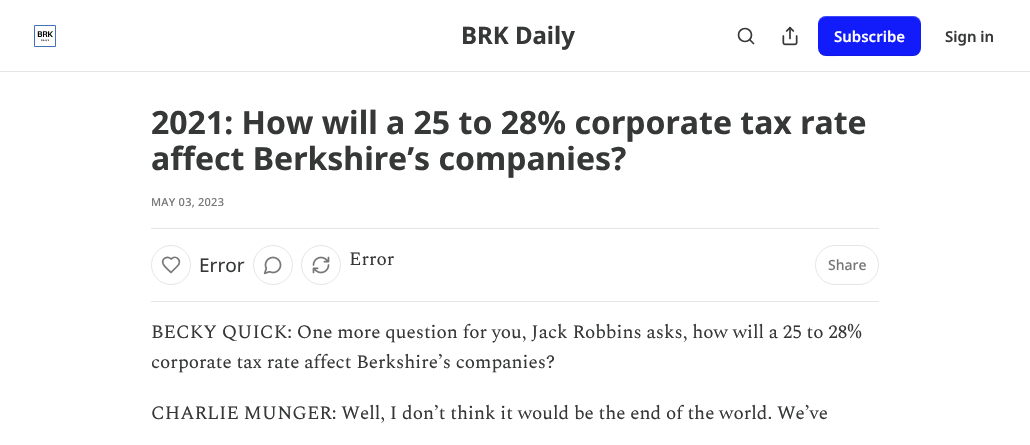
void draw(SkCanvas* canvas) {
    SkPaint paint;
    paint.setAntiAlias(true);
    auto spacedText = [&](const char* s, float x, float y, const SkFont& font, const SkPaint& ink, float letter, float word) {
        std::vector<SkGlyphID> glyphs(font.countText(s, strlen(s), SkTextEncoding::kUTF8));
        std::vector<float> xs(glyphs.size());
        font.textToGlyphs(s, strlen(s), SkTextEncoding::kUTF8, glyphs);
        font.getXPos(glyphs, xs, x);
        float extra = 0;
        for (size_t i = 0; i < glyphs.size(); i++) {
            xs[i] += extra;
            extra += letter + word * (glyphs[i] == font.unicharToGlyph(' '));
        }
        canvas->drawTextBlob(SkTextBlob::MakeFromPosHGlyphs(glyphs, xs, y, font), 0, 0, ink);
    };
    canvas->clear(0xFFFFFFFF);
    paint.setColor(0xFFE6E6E6);
    canvas->drawRect(SkRect::MakeXYWH(0, 71, 1030, 1), paint);
    canvas->drawImageRect(SkImages::DeferredFromEncodedData(SkData::MakeFromFileName("img1.png")), SkRect::MakeXYWH(34, 25, 22, 22), SkSamplingOptions());
    SkFont font1(fontMgr->matchFamilyStyle("Noto Sans", SkFontStyle::Bold()), 24);
    font1.setSubpixel(true);
    paint.setColor(0xFF363737);
    canvas->drawString("BRK Daily", 461, 44, font1, paint);
    paint.setStyle(SkPaint::kStroke_Style);
    paint.setStrokeWidth(1.7f);
    canvas->drawCircle(745, 35, 6.5f, paint);
    paint.setStrokeCap(SkPaint::kRound_Cap);
    paint.setStrokeJoin(SkPaint::kRound_Join);
    canvas->drawPath(SkPathBuilder().moveTo(753.5f, 43.5f).lineTo(750, 40).detach(), paint);
    canvas->drawImageRect(SkImages::DeferredFromEncodedData(SkData::MakeFromFileName("img2.png")), SkRect::MakeXYWH(782, 26, 16, 20), SkSamplingOptions());
    paint.setStyle(SkPaint::kFill_Style);
    paint.setColor(0xFF121BFA);
    canvas->drawRoundRect(SkRect::MakeXYWH(818, 16, 103, 40), 8, 8, paint);
    paint.setColor(0x1A000000);
    canvas->drawPath(SkPathBuilder().moveTo(818, 47).cubicTo(818, 59, 832, 56, 840, 56).lineTo(898, 56).cubicTo(907, 56, 921, 59, 921, 47).cubicTo(921, 51, 917, 55, 913, 55).lineTo(826, 55).cubicTo(822, 55, 818, 51, 818, 47).close().detach(), paint);
    paint.setColor(0x33FFFFFF);
    canvas->drawPath(SkPathBuilder().moveTo(826, 17).lineTo(913, 17).cubicTo(917, 17, 921, 21, 921, 25).cubicTo(921, 13, 907, 16, 898, 16).lineTo(840, 16).cubicTo(832, 16, 818, 13, 818, 25).cubicTo(818, 21, 822, 17, 826, 17).close().detach(), paint);
    SkFont font2(fontMgr->matchFamilyStyle("Noto Sans", SkFontStyle(600, SkFontStyle::kNormal_Width, SkFontStyle::kUpright_Slant)), 15);
    font2.setSubpixel(true);
    paint.setColor(0xFFFFFFFF);
    canvas->drawString("Subscribe", 834, 42, font2, paint);
    paint.setColor(0xFF363737);
    canvas->drawString("Sign in", 945, 42, font2, paint);
    SkFont font3(fontMgr->matchFamilyStyle("Noto Sans", SkFontStyle::Bold()), 32);
    font3.setSubpixel(true);
    canvas->drawString("2021: How will a 25 to 28% corporate tax rate", 151, 134, font3, paint);
    canvas->drawString("affect Berkshire’s companies?", 151, 170, font3, paint);
    SkFont font4(fontMgr->matchFamilyStyle("Noto Sans", SkFontStyle(500, SkFontStyle::kNormal_Width, SkFontStyle::kUpright_Slant)), 11);
    font4.setSubpixel(true);
    paint.setColor(0xFF777777);
    spacedText("MAY 03, 2023", 151, 206, font4, paint, 0.25f, 0);
    paint.setColor(0xFFE6E6E6);
    canvas->drawRect(SkRect::MakeXYWH(151, 228, 728, 1), paint);
    canvas->drawRect(SkRect::MakeXYWH(151, 301, 728, 1), paint);
    paint.setStyle(SkPaint::kStroke_Style);
    paint.setStrokeWidth(1);
    paint.setStrokeCap(SkPaint::kButt_Cap);
    paint.setStrokeJoin(SkPaint::kMiter_Join);
    canvas->drawCircle(171, 265, 19.5f, paint);
    paint.setStrokeWidth(1.7f);
    paint.setStrokeCap(SkPaint::kRound_Cap);
    paint.setStrokeJoin(SkPaint::kRound_Join);
    paint.setColor(0xFF777777);
    canvas->drawPath(SkPathBuilder().moveTo(177, 266.5f).cubicTo(183, 260.5f, 176, 254.5f, 171, 259).cubicTo(167.5f, 255.5f, 161.5f, 258.5f, 163, 263.5f).cubicTo(164, 266.5f, 169, 270.5f, 171, 272.5f).close().detach(), paint);
    SkFont font5(fontMgr->matchFamilyStyle("Noto Sans", SkFontStyle::Normal()), 19);
    font5.setSubpixel(true);
    paint.setStyle(SkPaint::kFill_Style);
    paint.setColor(0xFF363737);
    canvas->drawString("Error", 199, 272, font5, paint);
    paint.setStyle(SkPaint::kStroke_Style);
    paint.setStrokeWidth(1);
    paint.setStrokeCap(SkPaint::kButt_Cap);
    paint.setStrokeJoin(SkPaint::kMiter_Join);
    paint.setColor(0xFFE6E6E6);
    canvas->drawCircle(273, 265, 19.5f, paint);
    canvas->drawImageRect(SkImages::DeferredFromEncodedData(SkData::MakeFromFileName("img3.png")), SkRect::MakeXYWH(263, 256, 19, 19), SkSamplingOptions());
    canvas->drawCircle(321, 265, 19.5f, paint);
    canvas->drawImageRect(SkImages::DeferredFromEncodedData(SkData::MakeFromFileName("img4.png")), SkRect::MakeXYWH(312, 256, 18, 18), SkSamplingOptions());
    SkFont font6(fontMgr->matchFamilyStyle("Spectral", SkFontStyle::Normal()), 19);
    font6.setSubpixel(true);
    paint.setStyle(SkPaint::kFill_Style);
    paint.setColor(0xFF363737);
    canvas->drawString("Error", 349, 265, font6, paint);
    paint.setStyle(SkPaint::kStroke_Style);
    paint.setColor(0xFFE6E6E6);
    canvas->drawRoundRect(SkRect::MakeXYWH(815.5f, 245.5f, 63, 39), 19.5f, 19.5f, paint);
    SkFont font7(fontMgr->matchFamilyStyle("Noto Sans", SkFontStyle(500, SkFontStyle::kNormal_Width, SkFontStyle::kUpright_Slant)), 14);
    font7.setSubpixel(true);
    paint.setStyle(SkPaint::kFill_Style);
    paint.setColor(0xFF777777);
    canvas->drawString("Share", 828, 270, font7, paint);
    paint.setColor(0xFF363737);
    canvas->drawString("BECKY QUICK: One more question for you, Jack Robbins asks, how will a 25 to 28%", 151, 338, font6, paint);
    canvas->drawString("corporate tax rate affect Berkshire’s companies?", 151, 368, font6, paint);
    canvas->drawString("CHARLIE MUNGER: Well, I don’t think it would be the end of the world. We’ve", 151, 419, font6, paint);
}
